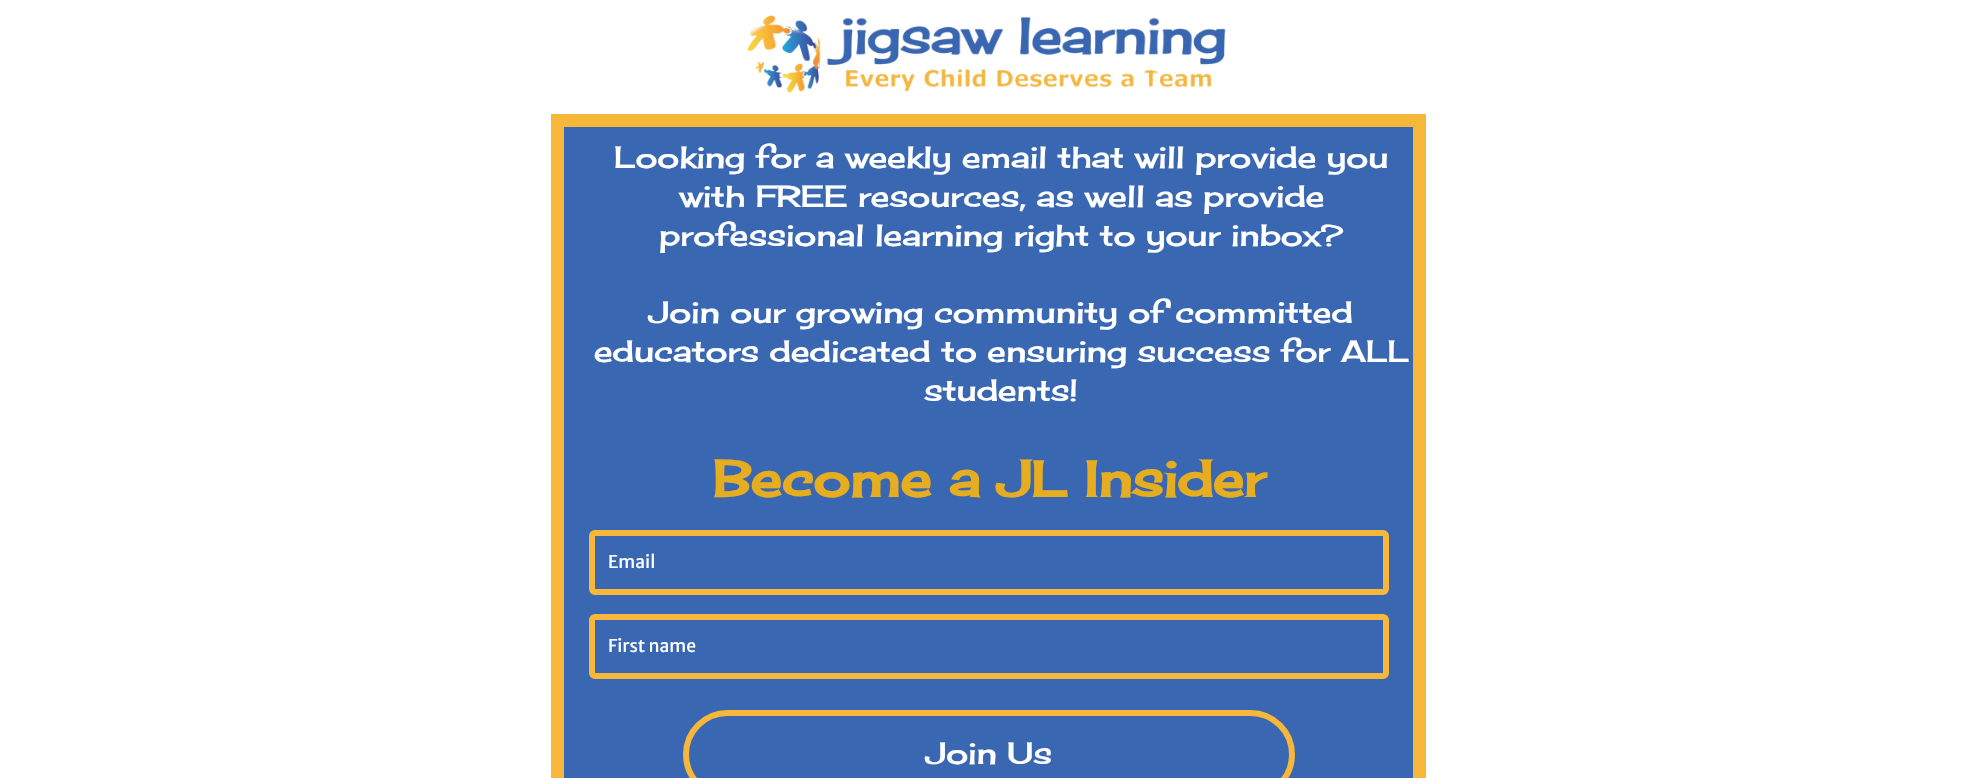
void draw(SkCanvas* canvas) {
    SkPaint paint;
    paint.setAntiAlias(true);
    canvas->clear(0xFFFFFFFF);
    canvas->drawImageRect(SkImages::DeferredFromEncodedData(SkData::MakeFromFileName("img1.png")), SkRect::MakeXYWH(747, 15, 479, 78), SkSamplingOptions());
    paint.setColor(0xFF3967B2);
    canvas->drawRect(SkRect::MakeXYWH(557.5f, 120.5f, 862, 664), paint);
    paint.setStyle(SkPaint::kStroke_Style);
    paint.setStrokeWidth(13);
    paint.setColor(0xFFF7B73B);
    canvas->drawRect(SkRect::MakeXYWH(557.5f, 120.5f, 862, 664), paint);
    SkFont font1(fontMgr->matchFamilyStyle("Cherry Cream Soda", SkFontStyle::Normal()), 30);
    font1.setSubpixel(true);
    paint.setStyle(SkPaint::kFill_Style);
    paint.setColor(0xFFFFFFFF);
    canvas->drawString("Looking for a weekly email that will provide you", 614, 168, font1, paint);
    canvas->drawString("with FREE resources, as well as provide", 679, 207, font1, paint);
    canvas->drawString("professional learning right to your inbox?", 659, 246, font1, paint);
    canvas->drawString("Join our growing community of committed", 649, 323, font1, paint);
    canvas->drawString("educators dedicated to ensuring success for ALL", 594, 362, font1, paint);
    canvas->drawString("students!", 924, 401, font1, paint);
    SkFont font2(fontMgr->matchFamilyStyle("Cherry Cream Soda", SkFontStyle::Bold()), 50);
    font2.setSubpixel(true);
    paint.setColor(0xFFE7AD20);
    canvas->drawString("Become a JL Insider", 713, 497, font2, paint);
    paint.setStyle(SkPaint::kStroke_Style);
    paint.setStrokeWidth(6);
    paint.setColor(0xFFF7B73B);
    canvas->drawRoundRect(SkRect::MakeXYWH(592, 533, 794, 59), 3, 3, paint);
    SkFont font3(fontMgr->matchFamilyStyle("Merriweather Sans", SkFontStyle::Normal()), 17.5f);
    font3.setSubpixel(true);
    paint.setStyle(SkPaint::kFill_Style);
    paint.setColor(0xFFFFFFFF);
    canvas->drawString("Email", 608, 568, font3, paint);
    paint.setStyle(SkPaint::kStroke_Style);
    paint.setColor(0xFFF7B73B);
    canvas->drawRoundRect(SkRect::MakeXYWH(592, 617, 794, 59), 3, 3, paint);
    paint.setStyle(SkPaint::kFill_Style);
    paint.setColor(0xFFFFFFFF);
    canvas->drawString("First name", 608, 652, font3, paint);
    paint.setStyle(SkPaint::kStroke_Style);
    paint.setColor(0xFFF7B73B);
    canvas->drawRoundRect(SkRect::MakeXYWH(686, 713, 606, 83), 41.5f, 41.5f, paint);
    paint.setStyle(SkPaint::kFill_Style);
    paint.setColor(0xFFFFFFFF);
    canvas->drawString("Join Us", 926, 764, font1, paint);
}
